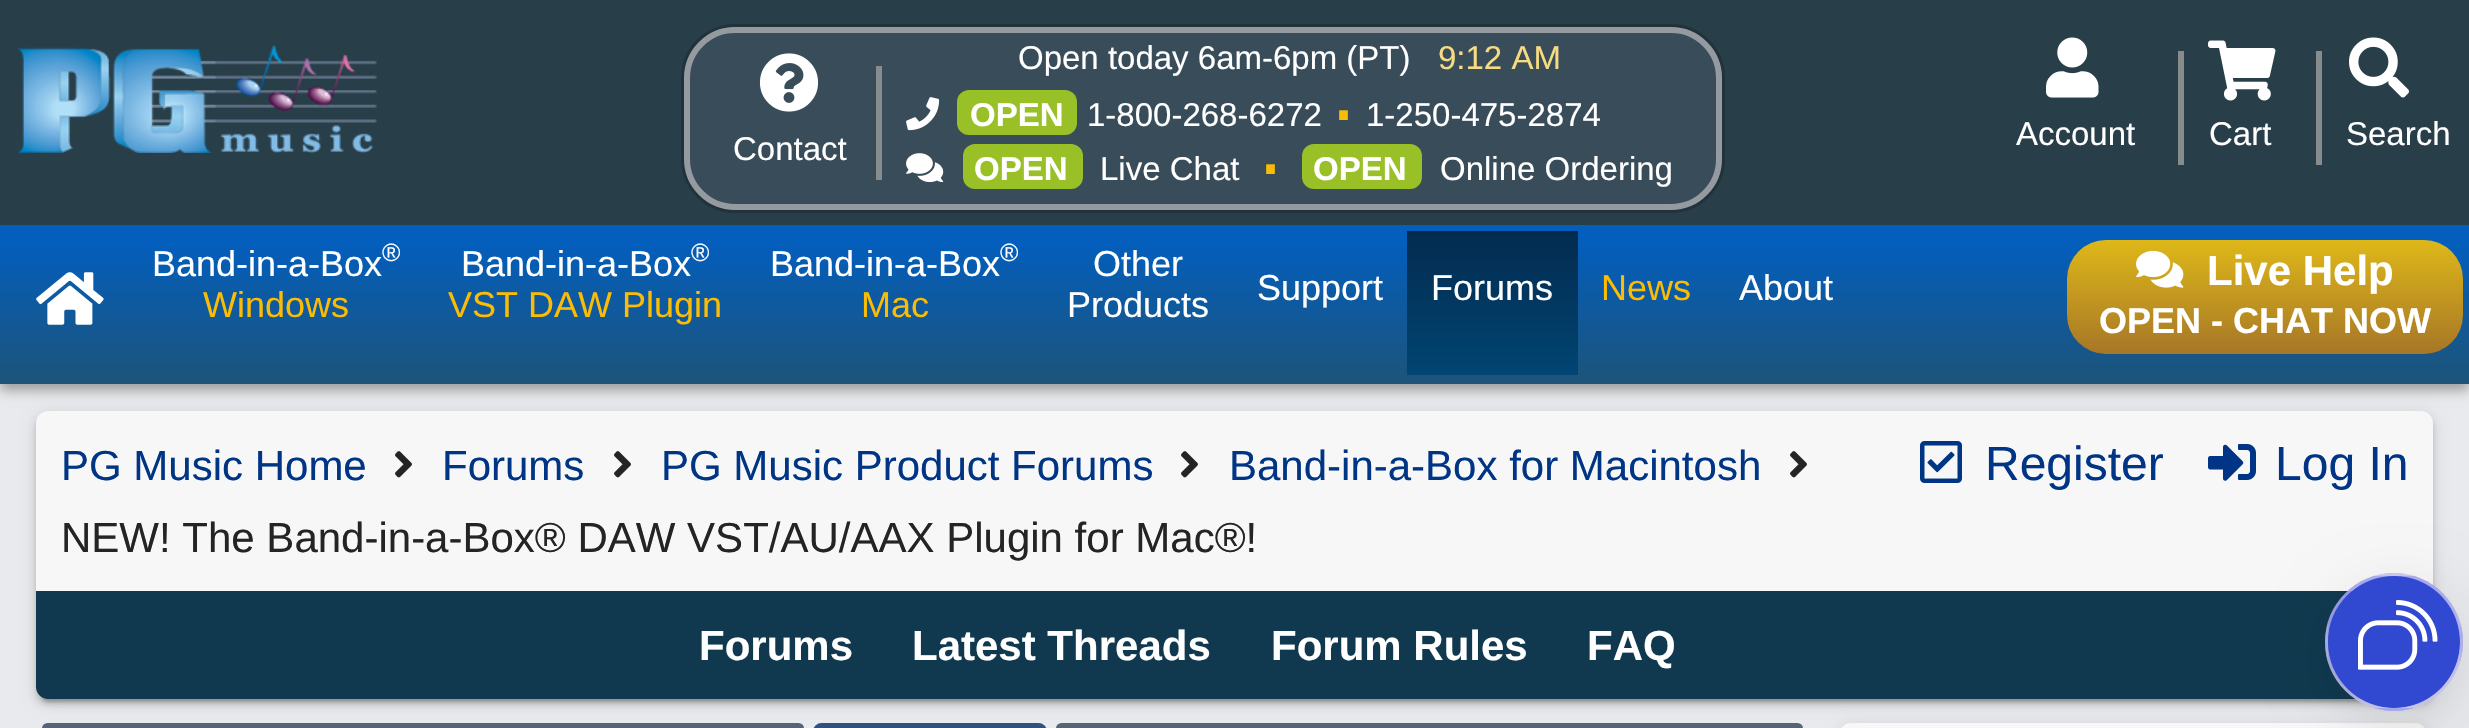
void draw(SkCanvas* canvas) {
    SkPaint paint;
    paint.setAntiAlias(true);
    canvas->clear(0xFFE8EAED);
    paint.setColor(0xFF999999);
    paint.setMaskFilter(SkMaskFilter::MakeBlur(kNormal_SkBlurStyle, 6));
    canvas->drawRect(SkRect::MakeXYWH(0, 231, 2469, 159), paint);
    paint.setMaskFilter(nullptr);
    paint.setColor(0xFF283E48);
    canvas->drawRect(SkRect::MakeXYWH(0, 0, 2469, 225), paint);
    canvas->drawImageRect(SkImages::DeferredFromEncodedData(SkData::MakeFromFileName("img1.png")), SkRect::MakeXYWH(18, 45, 359, 108), SkSamplingOptions());
    paint.setStyle(SkPaint::kStroke_Style);
    paint.setStrokeWidth(3);
    paint.setColor(0xFF20323A);
    canvas->drawRoundRect(SkRect::MakeXYWH(682.5f, 25.5f, 1041, 186), 52.5f, 52.5f, paint);
    paint.setStyle(SkPaint::kFill_Style);
    paint.setColor(0xFF394C59);
    canvas->drawRoundRect(SkRect::MakeXYWH(687, 30, 1032, 177), 48, 48, paint);
    paint.setStyle(SkPaint::kStroke_Style);
    paint.setStrokeWidth(6);
    paint.setColor(0xFF959AA0);
    canvas->drawRoundRect(SkRect::MakeXYWH(687, 30, 1032, 177), 48, 48, paint);
    paint.setStyle(SkPaint::kFill_Style);
    paint.setColor(0xFF878C8D);
    canvas->drawRect(SkRect::MakeXYWH(876, 66, 6, 114), paint);
    canvas->drawImageRect(SkImages::DeferredFromEncodedData(SkData::MakeFromFileName("img2.png")), SkRect::MakeXYWH(759, 53, 60, 59), SkSamplingOptions());
    SkFont font1(fontMgr->matchFamilyStyle("Liberation Sans", SkFontStyle::Normal()), 33);
    font1.setSubpixel(true);
    paint.setColor(0xFFFFFFFF);
    canvas->drawString("Contact", 733, 160, font1, paint);
    canvas->drawString("Open today 6am-6pm (PT)", 1018, 69, font1, paint);
    paint.setColor(0xFFF5DB82);
    canvas->drawString("9:12 AM", 1438, 69, font1, paint);
    canvas->drawImageRect(SkImages::DeferredFromEncodedData(SkData::MakeFromFileName("img3.png")), SkRect::MakeXYWH(906, 97, 34, 34), SkSamplingOptions());
    paint.setColor(0xFF99C027);
    canvas->drawRoundRect(SkRect::MakeXYWH(957, 90, 120, 45), 12, 12, paint);
    SkFont font2(fontMgr->matchFamilyStyle("Liberation Sans", SkFontStyle::Bold()), 33);
    font2.setSubpixel(true);
    paint.setColor(0xFFFFFFFF);
    canvas->drawString("OPEN", 970, 126, font2, paint);
    canvas->drawString("1-800-268-6272", 1087, 126, font1, paint);
    SkFont font3(fontMgr->matchFamilyStyle("Liberation Sans", SkFontStyle::Normal()), 90);
    font3.setSubpixel(true);
    paint.setColor(0xFFFBBC03);
    canvas->drawString(".", 1331, 120, font3, paint);
    paint.setColor(0xFFFFFFFF);
    canvas->drawString("1-250-475-2874", 1366, 126, font1, paint);
    canvas->drawImageRect(SkImages::DeferredFromEncodedData(SkData::MakeFromFileName("img4.png")), SkRect::MakeXYWH(906, 153, 38, 30), SkSamplingOptions());
    paint.setColor(0xFF99C027);
    canvas->drawRoundRect(SkRect::MakeXYWH(963, 144, 120, 45), 12, 12, paint);
    paint.setColor(0xFFFFFFFF);
    canvas->drawString("OPEN", 974, 180, font2, paint);
    canvas->drawString("Live Chat", 1100, 180, font1, paint);
    paint.setColor(0xFFFBBC03);
    canvas->drawString(".", 1258, 174, font3, paint);
    paint.setColor(0xFF99C027);
    canvas->drawRoundRect(SkRect::MakeXYWH(1302, 144, 120, 45), 12, 12, paint);
    paint.setColor(0xFFFFFFFF);
    canvas->drawString("OPEN", 1313, 180, font2, paint);
    canvas->drawString("Online Ordering", 1440, 180, font1, paint);
    paint.setColor(0xFF878C8D);
    canvas->drawRect(SkRect::MakeXYWH(2178, 51, 6, 114), paint);
    canvas->drawImageRect(SkImages::DeferredFromEncodedData(SkData::MakeFromFileName("img5.png")), SkRect::MakeXYWH(2046, 37, 53, 61), SkSamplingOptions());
    paint.setColor(0xFFFFFFFF);
    canvas->drawString("Account", 2016, 145, font1, paint);
    paint.setColor(0xFF878C8D);
    canvas->drawRect(SkRect::MakeXYWH(2316, 51, 6, 114), paint);
    canvas->drawImageRect(SkImages::DeferredFromEncodedData(SkData::MakeFromFileName("img6.png")), SkRect::MakeXYWH(2208, 40, 68, 61), SkSamplingOptions());
    paint.setColor(0xFFFFFFFF);
    canvas->drawString("Cart", 2209, 145, font1, paint);
    canvas->drawImageRect(SkImages::DeferredFromEncodedData(SkData::MakeFromFileName("img7.png")), SkRect::MakeXYWH(2349, 37, 60, 61), SkSamplingOptions());
    canvas->drawString("Search", 2346, 145, font1, paint);
    {
        const SkColor colors[] = {0xFF035EBD, 0xFF1D5479};
        const float stops[] = {0.1f, 1};
        const SkPoint ends[] = {{1235, 225}, {1235, 384}};
        paint.setShader(SkGradientShader::MakeLinear(ends, colors, stops, 2, SkTileMode::kClamp));
        paint.setAlpha(255);
    }
    canvas->drawRect(SkRect::MakeXYWH(0, 225, 2469, 159), paint);
    canvas->drawImageRect(SkImages::DeferredFromEncodedData(SkData::MakeFromFileName("img8.png")), SkRect::MakeXYWH(36, 272, 68, 53), SkSamplingOptions());
    SkFont font4(fontMgr->matchFamilyStyle("Liberation Sans", SkFontStyle::Normal()), 36);
    font4.setSubpixel(true);
    paint.setShader(nullptr);
    paint.setColor(0xFFFFFFFF);
    canvas->drawString("Band-in-a-Box", 152, 276, font4, paint);
    SkFont font5(fontMgr->matchFamilyStyle("Liberation Sans", SkFontStyle::Normal()), 25);
    font5.setSubpixel(true);
    canvas->drawString("®", 382, 261, font5, paint);
    paint.setColor(0xFFFBBC03);
    canvas->drawString("Windows", 203, 317, font4, paint);
    paint.setColor(0xFFFFFFFF);
    canvas->drawString("Band-in-a-Box", 461, 276, font4, paint);
    canvas->drawString("®", 691, 261, font5, paint);
    paint.setColor(0xFFFBBC03);
    canvas->drawString("VST DAW Plugin", 448, 317, font4, paint);
    paint.setColor(0xFFFFFFFF);
    canvas->drawString("Band-in-a-Box", 770, 276, font4, paint);
    canvas->drawString("®", 1000, 261, font5, paint);
    paint.setColor(0xFFFBBC03);
    canvas->drawString("Mac", 861, 317, font4, paint);
    paint.setColor(0xFFFFFFFF);
    canvas->drawString("Other", 1093, 276, font4, paint);
    canvas->drawString("Products", 1067, 317, font4, paint);
    canvas->drawString("Support", 1257, 300, font4, paint);
    {
        const SkColor colors[] = {0xFF032B4F, 0xFF014573};
        const float stops[] = {0, 1};
        const SkPoint ends[] = {{1493, 231}, {1493, 375}};
        paint.setShader(SkGradientShader::MakeLinear(ends, colors, stops, 2, SkTileMode::kClamp));
        paint.setAlpha(255);
    }
    canvas->drawRect(SkRect::MakeXYWH(1407, 231, 171, 144), paint);
    paint.setShader(nullptr);
    paint.setColor(0xFFFFFFFF);
    canvas->drawString("Forums", 1431, 300, font4, paint);
    paint.setColor(0xFFFBBC03);
    canvas->drawString("News", 1601, 300, font4, paint);
    paint.setColor(0xFFFFFFFF);
    canvas->drawString("About", 1739, 300, font4, paint);
    {
        const SkColor colors[] = {0xFFDEB819, 0xFFA77627};
        const float stops[] = {0, 1};
        const SkPoint ends[] = {{2265, 240}, {2265, 354}};
        paint.setShader(SkGradientShader::MakeLinear(ends, colors, stops, 2, SkTileMode::kClamp));
        paint.setAlpha(255);
    }
    canvas->drawRoundRect(SkRect::MakeXYWH(2067, 240, 396, 114), 39, 39, paint);
    canvas->drawImageRect(SkImages::DeferredFromEncodedData(SkData::MakeFromFileName("img9.png")), SkRect::MakeXYWH(2136, 250, 48, 38), SkSamplingOptions());
    SkFont font6(fontMgr->matchFamilyStyle("Liberation Sans", SkFontStyle::Bold()), 42);
    font6.setSubpixel(true);
    paint.setShader(nullptr);
    paint.setColor(0xFFFFFFFF);
    canvas->drawString("Live Help", 2207, 285, font6, paint);
    SkFont font7(fontMgr->matchFamilyStyle("Liberation Sans", SkFontStyle::Bold()), 36);
    font7.setSubpixel(true);
    canvas->drawString("OPEN - CHAT NOW", 2099, 333, font7, paint);
    paint.setColor(0x33000000);
    paint.setMaskFilter(SkMaskFilter::MakeBlur(kNormal_SkBlurStyle, 1.5f));
    canvas->drawRoundRect(SkRect::MakeXYWH(42, 426, 2385, 276), 6, 6, paint);
    paint.setMaskFilter(nullptr);
    paint.setColor(0xFF556477);
    canvas->drawRoundRect(SkRect::MakeXYWH(42, 723, 762, 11), 6, 6, paint);
    paint.setColor(0xFF324F82);
    canvas->drawRoundRect(SkRect::MakeXYWH(813, 723, 234, 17), 12, 12, paint);
    paint.setColor(0xFF556477);
    canvas->drawRoundRect(SkRect::MakeXYWH(1056, 723, 747, 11), 6, 6, paint);
    paint.setColor(0x1F000000);
    paint.setMaskFilter(SkMaskFilter::MakeBlur(kNormal_SkBlurStyle, 7.5f));
    canvas->drawRoundRect(SkRect::MakeXYWH(36, 414, 2397, 288), 12, 12, paint);
    paint.setMaskFilter(nullptr);
    paint.setColor(0x24000000);
    paint.setMaskFilter(SkMaskFilter::MakeBlur(kNormal_SkBlurStyle, 3));
    canvas->drawRoundRect(SkRect::MakeXYWH(36, 417, 2397, 288), 12, 12, paint);
    paint.setMaskFilter(nullptr);
    paint.setColor(0xFFF7F7F7);
    canvas->drawPath(SkPathBuilder().moveTo(48, 411).lineTo(2421, 411).cubicTo(2427.5f, 411, 2433, 416.5f, 2433, 423).lineTo(2433, 591).lineTo(36, 591).lineTo(36, 423).cubicTo(36, 416.5f, 41.5f, 411, 48, 411).close().detach(), paint);
    SkFont font8(fontMgr->matchFamilyStyle("Liberation Sans", SkFontStyle::Normal()), 42);
    font8.setSubpixel(true);
    paint.setColor(0xFF003586);
    canvas->drawString("PG Music Home", 61, 480, font8, paint);
    canvas->drawImageRect(SkImages::DeferredFromEncodedData(SkData::MakeFromFileName("img10.png")), SkRect::MakeXYWH(395, 451, 17, 27), SkSamplingOptions());
    canvas->drawString("Forums", 442, 480, font8, paint);
    canvas->drawImageRect(SkImages::DeferredFromEncodedData(SkData::MakeFromFileName("img10.png")), SkRect::MakeXYWH(614, 451, 17, 27), SkSamplingOptions());
    canvas->drawString("PG Music Product Forums", 661, 480, font8, paint);
    canvas->drawImageRect(SkImages::DeferredFromEncodedData(SkData::MakeFromFileName("img10.png")), SkRect::MakeXYWH(1181, 451, 17, 27), SkSamplingOptions());
    canvas->drawString("Band-in-a-Box for Macintosh", 1229, 480, font8, paint);
    canvas->drawImageRect(SkImages::DeferredFromEncodedData(SkData::MakeFromFileName("img10.png")), SkRect::MakeXYWH(1790, 451, 17, 27), SkSamplingOptions());
    paint.setColor(0xFF242424);
    canvas->drawString("NEW! The Band-in-a-Box® DAW VST/AU/AAX Plugin for Mac®!", 61, 552, font8, paint);
    canvas->drawImageRect(SkImages::DeferredFromEncodedData(SkData::MakeFromFileName("img11.png")), SkRect::MakeXYWH(1920, 441, 42, 42), SkSamplingOptions());
    SkFont font9(fontMgr->matchFamilyStyle("Liberation Sans", SkFontStyle::Normal()), 48);
    font9.setSubpixel(true);
    paint.setColor(0xFF003586);
    canvas->drawString("Register", 1985, 480, font9, paint);
    canvas->drawImageRect(SkImages::DeferredFromEncodedData(SkData::MakeFromFileName("img12.png")), SkRect::MakeXYWH(2208, 444, 48, 37), SkSamplingOptions());
    canvas->drawString("Log In", 2275, 480, font9, paint);
    paint.setColor(0xFF10394F);
    canvas->drawPath(SkPathBuilder().moveTo(36, 591).lineTo(2433, 591).lineTo(2433, 687).cubicTo(2433, 693.5f, 2427.5f, 699, 2421, 699).lineTo(48, 699).cubicTo(41.5f, 699, 36, 693.5f, 36, 687).close().detach(), paint);
    paint.setColor(0xFFFFFFFF);
    canvas->drawString("Forums", 699, 660, font6, paint);
    canvas->drawString("Latest Threads", 912, 660, font6, paint);
    canvas->drawString("Forum Rules", 1271, 660, font6, paint);
    canvas->drawString("FAQ", 1587, 660, font6, paint);
    paint.setColor(0x1F000000);
    paint.setMaskFilter(SkMaskFilter::MakeBlur(kNormal_SkBlurStyle, 7.5f));
    canvas->drawRoundRect(SkRect::MakeXYWH(1839, 726, 588, 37), 12, 12, paint);
    paint.setMaskFilter(nullptr);
    paint.setColor(0xFFF7F7F7);
    canvas->drawPath(SkPathBuilder().moveTo(1851, 723).lineTo(2415, 723).cubicTo(2421.5f, 723, 2427, 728.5f, 2427, 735).lineTo(2427, 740).lineTo(1839, 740).lineTo(1839, 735).cubicTo(1839, 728.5f, 1844.5f, 723, 1851, 723).close().detach(), paint);
    canvas->save();
    canvas->clipPath(SkPathBuilder(SkPathFillType::kEvenOdd).moveTo(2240, 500).lineTo(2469, 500).lineTo(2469, 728).lineTo(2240, 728).close().moveTo(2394, 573).cubicTo(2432, 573, 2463, 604, 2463, 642).cubicTo(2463, 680, 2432, 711, 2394, 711).cubicTo(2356, 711, 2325, 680, 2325, 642).cubicTo(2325, 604, 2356, 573, 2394, 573).close().detach(), true);
    paint.setColor(0x1A000000);
    paint.setMaskFilter(SkMaskFilter::MakeBlur(kNormal_SkBlurStyle, 30));
    canvas->drawRoundRect(SkRect::MakeXYWH(2331, 591, 138, 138), 69, 69, paint);
    paint.setMaskFilter(nullptr);
    canvas->restore();
    canvas->save();
    canvas->clipPath(SkPathBuilder().moveTo(2394, 573).cubicTo(2432, 573, 2463, 604, 2463, 642).cubicTo(2463, 680, 2432, 711, 2394, 711).cubicTo(2356, 711, 2325, 680, 2325, 642).cubicTo(2325, 604, 2356, 573, 2394, 573).close().detach(), true);
    {
        const SkColor colors[] = {0xFF6D74FD, 0xFFD1C8EF};
        const float stops[] = {0.24f, 1};
        const SkPoint ends[] = {{2370, 431}, {2424, 608}};
        paint.setShader(SkGradientShader::MakeLinear(ends, colors, stops, 2, SkTileMode::kClamp));
        paint.setAlpha(255);
    }
    canvas->drawRect(SkRect::MakeXYWH(2374, 573, 40, 3), paint);
    {
        const SkColor colors[] = {0xFF3F4EDC, 0xFFA3A2CD};
        const float stops[] = {0.24f, 1};
        const SkPoint ends[] = {{2238, 563}, {2292, 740}};
        paint.setShader(SkGradientShader::MakeLinear(ends, colors, stops, 2, SkTileMode::kClamp));
        paint.setAlpha(255);
    }
    canvas->drawRect(SkRect::MakeXYWH(2325, 622, 3, 40), paint);
    {
        const SkColor colors[] = {0xCC4B53FF, 0xCCC8BCED};
        const float stops[] = {0.24f, 1};
        const SkPoint ends[] = {{2370, 563}, {2424, 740}};
        paint.setShader(SkGradientShader::MakeLinear(ends, colors, stops, 2, SkTileMode::kClamp));
        paint.setAlpha(255);
    }
    canvas->drawRect(SkRect::MakeXYWH(2328, 576, 132, 132), paint);
    {
        const SkColor colors[] = {0xCC4B53FF, 0xCCC8BCED};
        const float stops[] = {0.24f, 1};
        const SkPoint ends[] = {{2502, 563}, {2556, 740}};
        paint.setShader(SkGradientShader::MakeLinear(ends, colors, stops, 2, SkTileMode::kClamp));
        paint.setAlpha(255);
    }
    canvas->drawRect(SkRect::MakeXYWH(2460, 622, 3, 40), paint);
    {
        const SkColor colors[] = {0xCC4B53FF, 0xCCC8BCED};
        const float stops[] = {0.24f, 1};
        const SkPoint ends[] = {{2370, 695}, {2424, 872}};
        paint.setShader(SkGradientShader::MakeLinear(ends, colors, stops, 2, SkTileMode::kClamp));
        paint.setAlpha(255);
    }
    canvas->drawRect(SkRect::MakeXYWH(2374, 708, 40, 3), paint);
    canvas->restore();
    paint.setStyle(SkPaint::kStroke_Style);
    paint.setStrokeWidth(3);
    paint.setShader(nullptr);
    paint.setColor(0x8AD9D9D9);
    canvas->drawCircle(2394, 642, 67.5f, paint);
    canvas->drawImageRect(SkImages::DeferredFromEncodedData(SkData::MakeFromFileName("img13.png")), SkRect::MakeXYWH(2328, 576, 132, 132), SkSamplingOptions());
}
